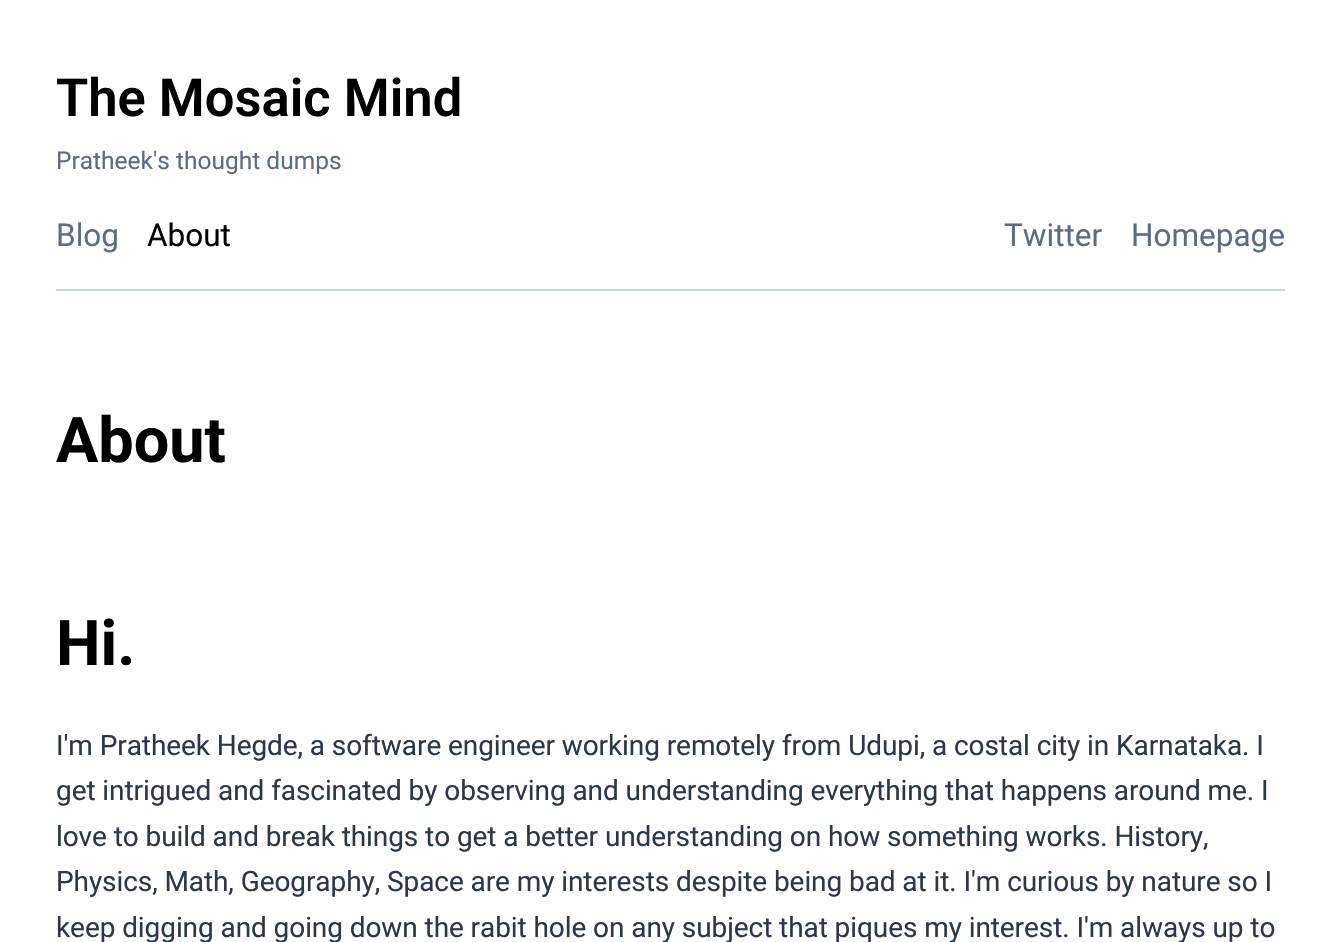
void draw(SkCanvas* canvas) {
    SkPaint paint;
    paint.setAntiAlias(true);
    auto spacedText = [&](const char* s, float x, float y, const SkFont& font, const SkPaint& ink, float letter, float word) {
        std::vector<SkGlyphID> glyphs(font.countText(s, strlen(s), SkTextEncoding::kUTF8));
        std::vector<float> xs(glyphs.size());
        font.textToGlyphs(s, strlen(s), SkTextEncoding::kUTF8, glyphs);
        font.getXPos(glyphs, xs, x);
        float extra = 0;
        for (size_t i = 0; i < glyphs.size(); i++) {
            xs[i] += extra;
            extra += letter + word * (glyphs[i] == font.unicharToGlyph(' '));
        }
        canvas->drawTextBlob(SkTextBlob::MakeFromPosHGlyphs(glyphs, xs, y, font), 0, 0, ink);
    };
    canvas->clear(0xFFFFFFFF);
    SkFont font1(fontMgr->matchFamilyStyle("Roboto", SkFontStyle(600, SkFontStyle::kNormal_Width, SkFontStyle::kUpright_Slant)), 52.5f);
    font1.setSubpixel(true);
    paint.setColor(0xFF000000);
    canvas->drawString("The Mosaic Mind", 56, 116, font1, paint);
    SkFont font2(fontMgr->matchFamilyStyle("Roboto", SkFontStyle::Normal()), 24.5f);
    font2.setSubpixel(true);
    paint.setColor(0xFF5F6C80);
    canvas->drawString("Pratheek's thought dumps", 56, 169, font2, paint);
    paint.setColor(0xFFCBD5E0);
    canvas->drawRect(SkRect::MakeXYWH(56, 289, 1229, 2), paint);
    SkFont font3(fontMgr->matchFamilyStyle("Roboto", SkFontStyle::Normal()), 31.5f);
    font3.setSubpixel(true);
    paint.setColor(0xFF5F6C80);
    canvas->drawString("Blog", 56, 246, font3, paint);
    paint.setColor(0xFF000000);
    canvas->drawString("About", 147, 246, font3, paint);
    paint.setColor(0xFF5F6C80);
    canvas->drawString("Twitter", 1004, 246, font3, paint);
    canvas->drawString("Homepage", 1131, 246, font3, paint);
    SkFont font4(fontMgr->matchFamilyStyle("Roboto", SkFontStyle::Bold()), 63);
    font4.setSubpixel(true);
    paint.setColor(0xFF000000);
    canvas->drawString("About", 56, 462, font4, paint);
    canvas->drawString("Hi.", 56, 665, font4, paint);
    SkFont font5(fontMgr->matchFamilyStyle("Roboto", SkFontStyle::Normal()), 28);
    font5.setSubpixel(true);
    paint.setColor(0xFF2D3748);
    spacedText("I'm Pratheek Hegde, a software engineer working remotely from Udupi, a costal city in Karnataka. I", 56, 755, font5, paint, -0.08f, 0);
    spacedText("get intrigued and fascinated by observing and understanding everything that happens around me. I", 56, 800, font5, paint, -0.08f, 0);
    spacedText("love to build and break things to get a better understanding on how something works. History,", 56, 846, font5, paint, -0.08f, 0);
    spacedText("Physics, Math, Geography, Space are my interests despite being bad at it. I'm curious by nature so I", 56, 891, font5, paint, -0.08f, 0);
    spacedText("keep digging and going down the rabit hole on any subject that piques my interest. I'm always up to", 56, 937, font5, paint, -0.08f, 0);
}
